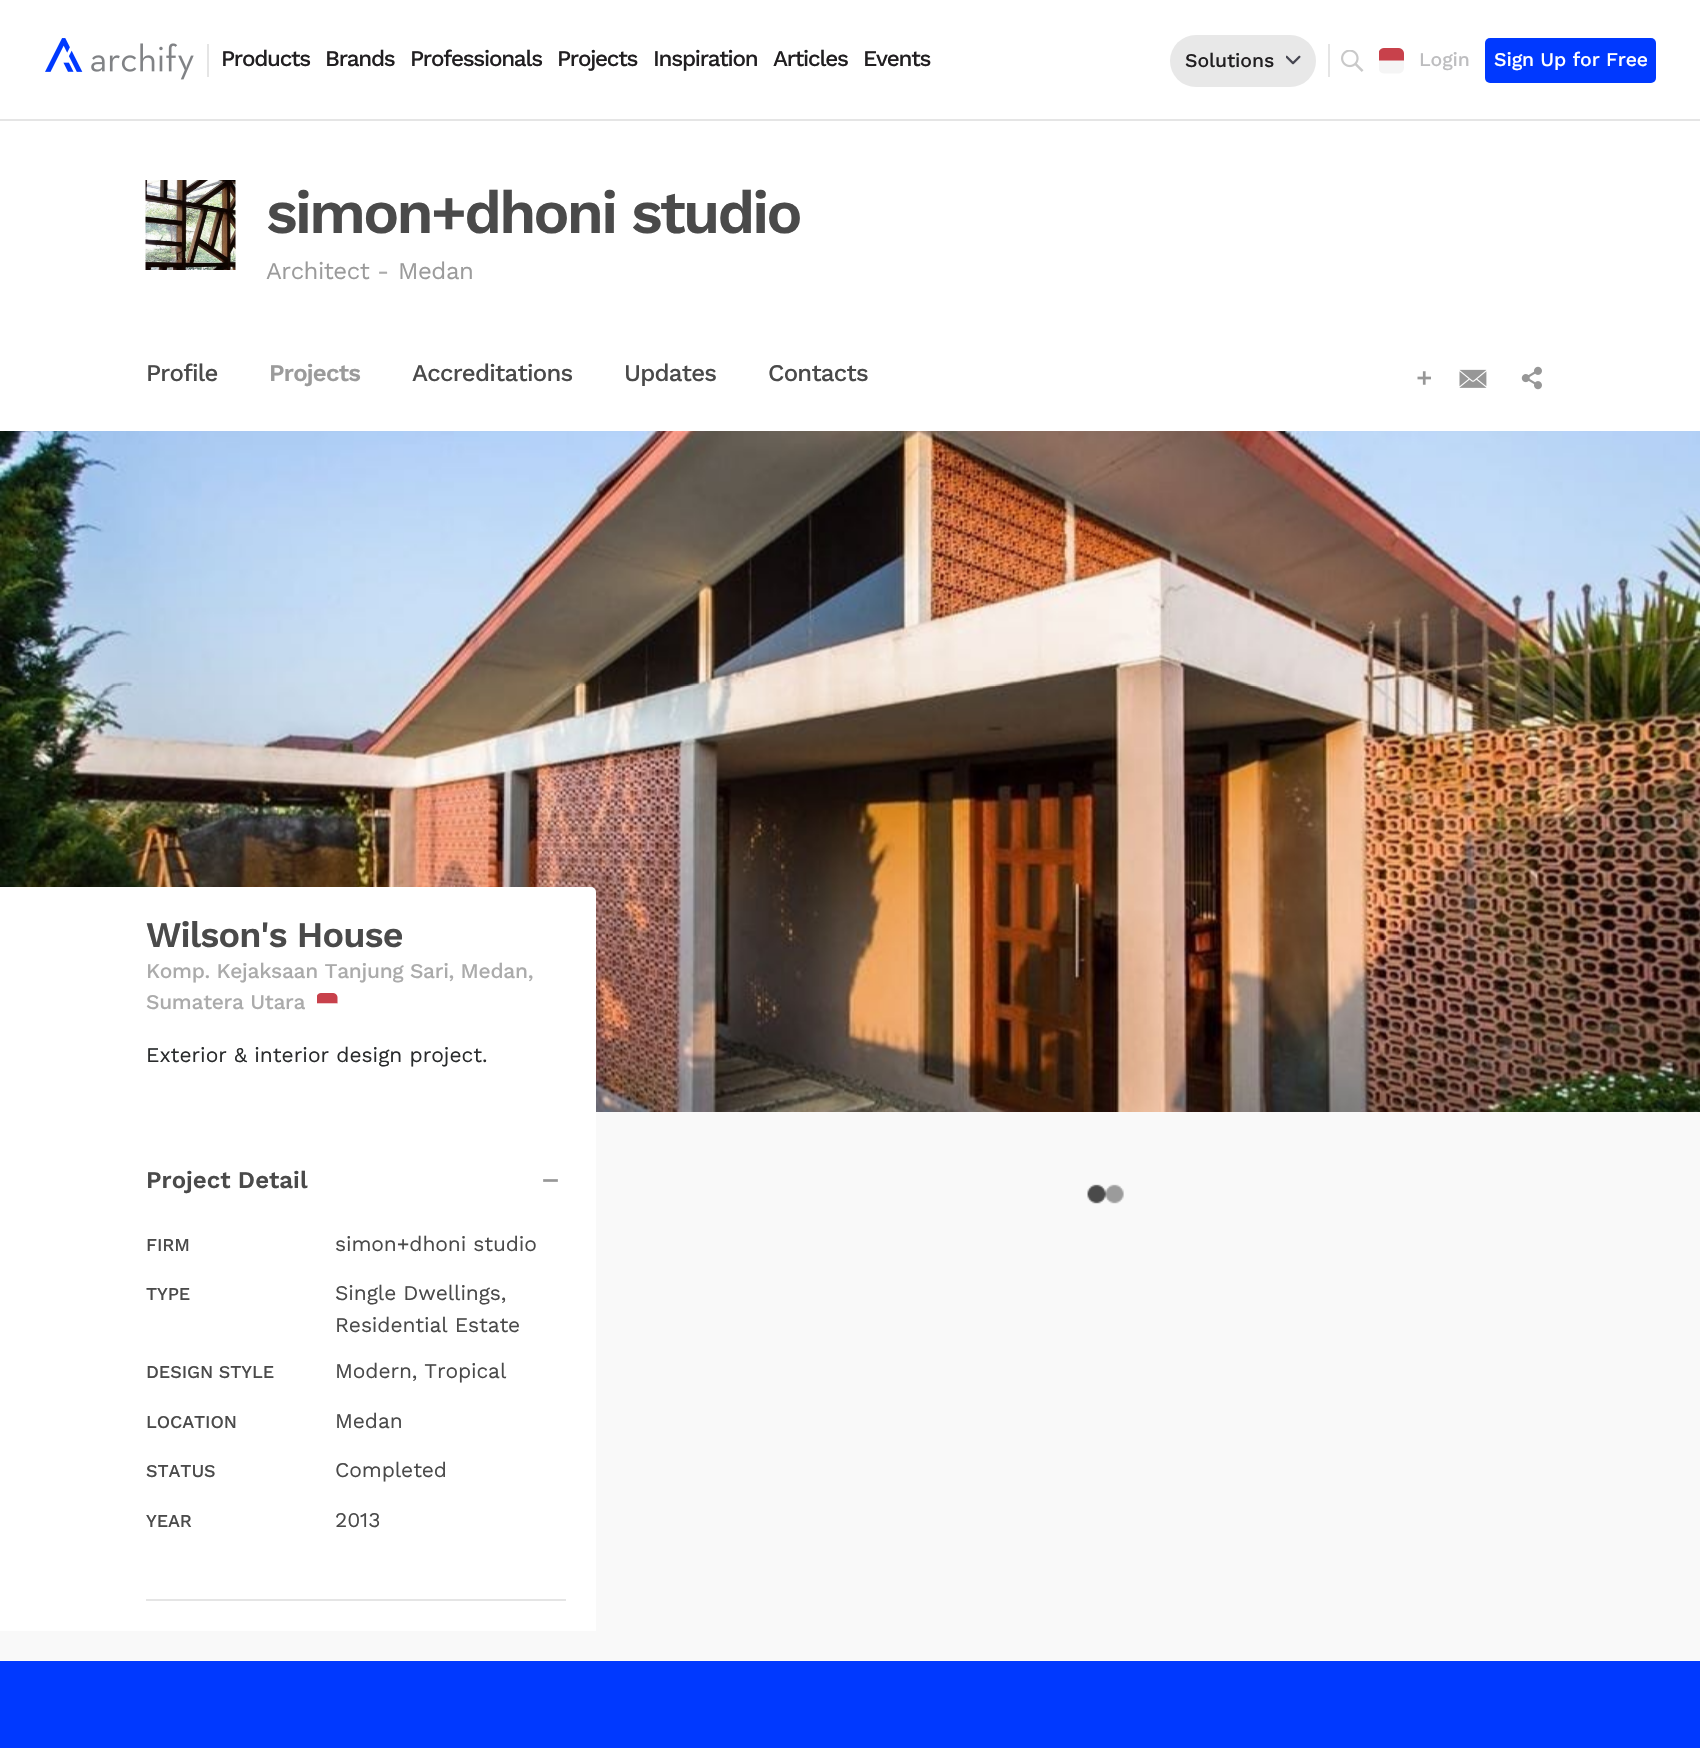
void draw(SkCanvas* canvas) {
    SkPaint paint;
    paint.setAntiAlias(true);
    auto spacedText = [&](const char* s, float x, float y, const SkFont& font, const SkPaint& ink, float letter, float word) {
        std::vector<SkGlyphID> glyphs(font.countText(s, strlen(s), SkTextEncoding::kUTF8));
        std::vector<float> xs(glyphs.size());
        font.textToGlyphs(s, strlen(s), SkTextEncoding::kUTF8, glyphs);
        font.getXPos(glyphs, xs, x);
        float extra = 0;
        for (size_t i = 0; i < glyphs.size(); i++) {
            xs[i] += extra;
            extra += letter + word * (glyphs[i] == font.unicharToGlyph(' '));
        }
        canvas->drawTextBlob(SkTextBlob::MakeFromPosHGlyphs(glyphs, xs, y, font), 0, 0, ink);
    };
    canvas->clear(0xFFF9F9F9);
    paint.setColor(0xFFFFFFFF);
    canvas->drawRect(SkRect::MakeXYWH(0, 0, 1700, 119), paint);
    paint.setColor(0xFFE5E5E5);
    canvas->drawRect(SkRect::MakeXYWH(0, 119, 1700, 2), paint);
    canvas->drawRect(SkRect::MakeXYWH(207, 44, 2, 33), paint);
    canvas->drawImageRect(SkImages::DeferredFromEncodedData(SkData::MakeFromFileName("img1.png")), SkRect::MakeXYWH(45, 38, 149, 42), SkSamplingOptions());
    SkFont font1(fontMgr->matchFamilyStyle("Work Sans", SkFontStyle(500, SkFontStyle::kNormal_Width, SkFontStyle::kUpright_Slant)), 22.5f);
    font1.setSubpixel(true);
    paint.setColor(0xFF211F21);
    spacedText("Products", 221, 66, font1, paint, -1.25f, 0);
    spacedText("Brands", 325, 66, font1, paint, -1.25f, 0);
    spacedText("Professionals", 410, 66, font1, paint, -1.25f, 0);
    spacedText("Projects", 557, 66, font1, paint, -1.25f, 0);
    spacedText("Inspiration", 653, 66, font1, paint, -1.25f, 0);
    spacedText("Articles", 773, 66, font1, paint, -1.25f, 0);
    spacedText("Events", 863, 66, font1, paint, -1.25f, 0);
    paint.setColor(0xFFE5E5E5);
    canvas->drawRect(SkRect::MakeXYWH(1328, 44, 2, 33), paint);
    paint.setColor(0xFFE8E8E8);
    canvas->drawRoundRect(SkRect::MakeXYWH(1170, 35, 146, 52), 26, 26, paint);
    SkFont font2(fontMgr->matchFamilyStyle("Work Sans", SkFontStyle(500, SkFontStyle::kNormal_Width, SkFontStyle::kUpright_Slant)), 19.5f);
    font2.setSubpixel(true);
    paint.setColor(0xFF211F21);
    spacedText("Solutions", 1185, 67, font2, paint, -0.1f, 0);
    canvas->drawImageRect(SkImages::DeferredFromEncodedData(SkData::MakeFromFileName("img2.png")), SkRect::MakeXYWH(1286, 55, 15, 10), SkSamplingOptions());
    canvas->drawImageRect(SkImages::DeferredFromEncodedData(SkData::MakeFromFileName("img3.png")), SkRect::MakeXYWH(1341, 50, 23, 22), SkSamplingOptions());
    canvas->drawImageRect(SkImages::DeferredFromEncodedData(SkData::MakeFromFileName("img4.png")), SkRect::MakeXYWH(1379, 48, 25, 26), SkSamplingOptions());
    paint.setColor(0xFFBDBDBF);
    spacedText("Login", 1419, 66, font2, paint, -0.1f, 0);
    paint.setColor(0xFF0039FF);
    canvas->drawRoundRect(SkRect::MakeXYWH(1485, 38, 171, 45), 5, 5, paint);
    paint.setColor(0xFFFFFFFF);
    spacedText("Sign Up for Free", 1494, 66, font2, paint, -0.1f, 0);
    canvas->drawRect(SkRect::MakeXYWH(0, 121, 1700, 310), paint);
    canvas->drawImageRect(SkImages::DeferredFromEncodedData(SkData::MakeFromFileName("img5.png")), SkRect::MakeXYWH(145, 180, 91, 90), SkSamplingOptions());
    SkFont font3(fontMgr->matchFamilyStyle("Work Sans", SkFontStyle(600, SkFontStyle::kNormal_Width, SkFontStyle::kUpright_Slant)), 60);
    font3.setSubpixel(true);
    paint.setColor(0xFF4A4A4A);
    spacedText("simon+dhoni studio", 266, 233, font3, paint, -2.75f, 0);
    SkFont font4(fontMgr->matchFamilyStyle("Work Sans", SkFontStyle::Normal()), 24);
    font4.setSubpixel(true);
    paint.setColor(0xFF9B9B9B);
    spacedText("Architect", 266, 279, font4, paint, -0.5f, 0);
    paint.setColor(0xFFABABAB);
    canvas->drawString("-", 377, 279, font4, paint);
    paint.setColor(0xFF9B9B9B);
    spacedText("Medan", 398, 279, font4, paint, -0.5f, 0);
    SkFont font5(fontMgr->matchFamilyStyle("Work Sans", SkFontStyle(500, SkFontStyle::kNormal_Width, SkFontStyle::kUpright_Slant)), 24);
    font5.setSubpixel(true);
    paint.setColor(0xFF4A4A4A);
    spacedText("Profile", 146, 381, font5, paint, -0.75f, 0);
    SkFont font6(fontMgr->matchFamilyStyle("Work Sans", SkFontStyle(600, SkFontStyle::kNormal_Width, SkFontStyle::kUpright_Slant)), 24);
    font6.setSubpixel(true);
    paint.setColor(0xFF9B9B9B);
    spacedText("Projects", 269, 381, font6, paint, -0.75f, 0);
    paint.setColor(0xFF4A4A4A);
    spacedText("Accreditations", 412, 381, font5, paint, -0.75f, 0);
    spacedText("Updates", 624, 381, font5, paint, -0.75f, 0);
    spacedText("Contacts", 768, 381, font5, paint, -0.75f, 0);
    canvas->drawImageRect(SkImages::DeferredFromEncodedData(SkData::MakeFromFileName("img6.png")), SkRect::MakeXYWH(1417, 371, 14, 14), SkSamplingOptions());
    canvas->drawImageRect(SkImages::DeferredFromEncodedData(SkData::MakeFromFileName("img7.png")), SkRect::MakeXYWH(1459, 369, 28, 19), SkSamplingOptions());
    canvas->drawImageRect(SkImages::DeferredFromEncodedData(SkData::MakeFromFileName("img8.png")), SkRect::MakeXYWH(1521, 366, 21, 24), SkSamplingOptions());
    canvas->drawImageRect(SkImages::DeferredFromEncodedData(SkData::MakeFromFileName("img9.png")), SkRect::MakeXYWH(0, 431, 1700, 681), SkSamplingOptions());
    paint.setColor(0xFFFFFFFF);
    canvas->drawRect(SkRect::MakeXYWH(591, 1626, 5, 5), paint);
    canvas->drawRoundRect(SkRect::MakeXYWH(-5, 887, 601, 744), 5, 5, paint);
    SkFont font7(fontMgr->matchFamilyStyle("Work Sans", SkFontStyle(600, SkFontStyle::kNormal_Width, SkFontStyle::kUpright_Slant)), 36);
    font7.setSubpixel(true);
    paint.setColor(0xFF4A4A4A);
    spacedText("Wilson's House", 146, 947, font7, paint, -0.9f, 0);
    SkFont font8(fontMgr->matchFamilyStyle("Work Sans", SkFontStyle(500, SkFontStyle::kNormal_Width, SkFontStyle::kUpright_Slant)), 21);
    font8.setSubpixel(true);
    paint.setColor(0xFFABABAB);
    spacedText("Komp. Kejaksaan Tanjung Sari, Medan,", 146, 978, font8, paint, -0.3f, 0);
    spacedText("Sumatera Utara", 146, 1009, font8, paint, -0.3f, 0);
    canvas->drawImageRect(SkImages::DeferredFromEncodedData(SkData::MakeFromFileName("img10.png")), SkRect::MakeXYWH(317, 993, 21, 11), SkSamplingOptions());
    SkFont font9(fontMgr->matchFamilyStyle("Work Sans", SkFontStyle::Normal()), 21);
    font9.setSubpixel(true);
    paint.setColor(0xFF292B2C);
    canvas->drawString("Exterior & interior design project.", 146, 1062, font9, paint);
    paint.setColor(0xFFE5E5E5);
    canvas->drawRect(SkRect::MakeXYWH(146, 1599, 420, 2), paint);
    paint.setColor(0xFF4A4A4A);
    canvas->drawString("Project Detail", 146, 1188, font6, paint);
    paint.setColor(0xFFD8D8D8);
    canvas->drawRect(SkRect::MakeXYWH(543, 1179, 15, 3), paint);
    paint.setStyle(SkPaint::kStroke_Style);
    paint.setStrokeWidth(1.5f);
    paint.setColor(0xFF979797);
    canvas->drawPath(SkPathBuilder().moveTo(544, 1180).lineTo(557, 1180).lineTo(557, 1181).lineTo(544, 1181).close().detach(), paint);
    SkFont font10(fontMgr->matchFamilyStyle("Work Sans", SkFontStyle(500, SkFontStyle::kNormal_Width, SkFontStyle::kUpright_Slant)), 18);
    font10.setSubpixel(true);
    paint.setStyle(SkPaint::kFill_Style);
    paint.setColor(0xFF4A4A4A);
    spacedText("FIRM", 146, 1251, font10, paint, -0.1f, 0);
    spacedText("simon+dhoni studio", 335, 1251, font9, paint, -0.1f, 0);
    spacedText("TYPE", 146, 1300, font10, paint, -0.1f, 0);
    spacedText("Single Dwellings,", 335, 1300, font9, paint, -0.1f, 0);
    spacedText("Residential Estate", 335, 1332, font9, paint, -0.1f, 0);
    spacedText("DESIGN STYLE", 146, 1378, font10, paint, -0.1f, 0);
    spacedText("Modern, Tropical", 335, 1378, font9, paint, -0.1f, 0);
    spacedText("LOCATION", 146, 1428, font10, paint, -0.1f, 0);
    spacedText("Medan", 335, 1428, font9, paint, -0.1f, 0);
    spacedText("STATUS", 146, 1477, font10, paint, -0.1f, 0);
    spacedText("Completed", 335, 1477, font9, paint, -0.1f, 0);
    spacedText("YEAR", 146, 1527, font10, paint, -0.1f, 0);
    spacedText("2013", 335, 1527, font9, paint, -0.1f, 0);
    canvas->drawImageRect(SkImages::DeferredFromEncodedData(SkData::MakeFromFileName("img11.png")), SkRect::MakeXYWH(1087, 1184, 37, 20), SkSamplingOptions());
    paint.setColor(0xFF0039FF);
    canvas->drawRect(SkRect::MakeXYWH(0, 1661, 1700, 87), paint);
}
